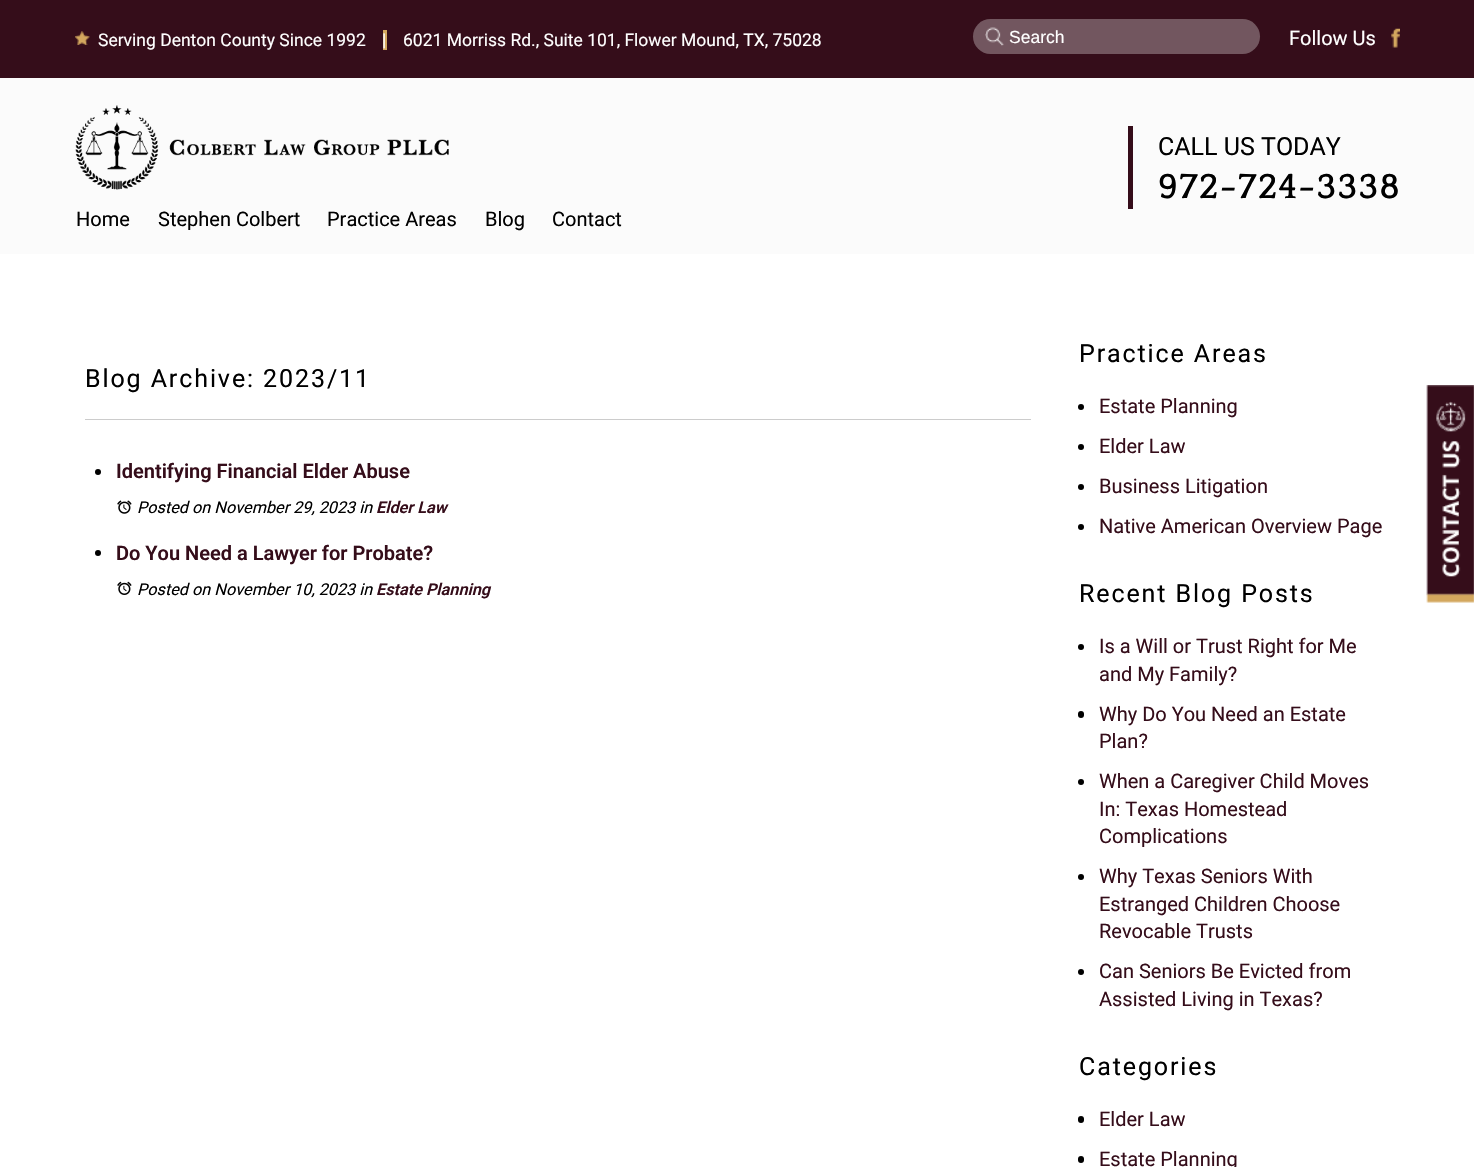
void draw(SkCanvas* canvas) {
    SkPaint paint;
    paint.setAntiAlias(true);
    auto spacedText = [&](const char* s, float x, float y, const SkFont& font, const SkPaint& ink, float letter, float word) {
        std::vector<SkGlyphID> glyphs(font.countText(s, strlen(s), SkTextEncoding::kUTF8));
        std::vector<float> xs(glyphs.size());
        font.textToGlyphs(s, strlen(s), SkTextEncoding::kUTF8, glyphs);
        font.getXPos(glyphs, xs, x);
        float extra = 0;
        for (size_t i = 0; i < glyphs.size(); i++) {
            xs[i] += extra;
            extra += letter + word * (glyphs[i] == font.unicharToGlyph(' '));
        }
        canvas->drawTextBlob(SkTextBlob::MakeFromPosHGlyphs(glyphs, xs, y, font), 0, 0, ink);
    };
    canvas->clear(0xFFFFFFFF);
    paint.setColor(0xFF350D1A);
    canvas->drawRect(SkRect::MakeXYWH(0, 0, 1474, 78), paint);
    canvas->drawImageRect(SkImages::DeferredFromEncodedData(SkData::MakeFromFileName("img1.png")), SkRect::MakeXYWH(75, 31, 15, 14), SkSamplingOptions());
    SkFont font1(fontMgr->matchFamilyStyle("Roboto", SkFontStyle::Normal()), 17.5f);
    font1.setSubpixel(true);
    paint.setColor(0xFFFFFFFF);
    canvas->drawString("Serving Denton County Since 1992", 98, 46, font1, paint);
    paint.setColor(0xFFD3A75E);
    canvas->drawRect(SkRect::MakeXYWH(383, 30, 4, 20), paint);
    paint.setColor(0xFFFFFFFF);
    canvas->drawString("|", 382, 46, font1, paint);
    canvas->drawString("6021 Morriss Rd., Suite 101, Flower Mound, TX, 75028", 403, 46, font1, paint);
    paint.setColor(0xFF72565F);
    canvas->drawRoundRect(SkRect::MakeXYWH(973, 19, 287, 35), 17.5f, 17.5f, paint);
    canvas->drawImageRect(SkImages::DeferredFromEncodedData(SkData::MakeFromFileName("img2.png")), SkRect::MakeXYWH(985, 27, 19, 19), SkSamplingOptions());
    SkFont font2(fontMgr->matchFamilyStyle("Liberation Sans", SkFontStyle::Normal()), 17.5f);
    font2.setSubpixel(true);
    paint.setColor(0xFFFFFFFF);
    canvas->drawString("Search", 1009, 43, font2, paint);
    SkFont font3(fontMgr->matchFamilyStyle("Roboto", SkFontStyle::Normal()), 20);
    font3.setSubpixel(true);
    canvas->drawString("Follow Us", 1289, 45, font3, paint);
    canvas->drawImageRect(SkImages::DeferredFromEncodedData(SkData::MakeFromFileName("img3.png")), SkRect::MakeXYWH(1391, 28, 9, 20), SkSamplingOptions());
    paint.setColor(0xFFFBFBFB);
    canvas->drawRect(SkRect::MakeXYWH(0, 78, 1474, 176), paint);
    canvas->drawImageRect(SkImages::DeferredFromEncodedData(SkData::MakeFromFileName("img4.png")), SkRect::MakeXYWH(75, 105, 374, 85), SkSamplingOptions());
    paint.setColor(0xFF350D1A);
    canvas->drawRect(SkRect::MakeXYWH(1128, 126, 5, 83), paint);
    SkFont font4(fontMgr->matchFamilyStyle("Roboto", SkFontStyle::Normal()), 25);
    font4.setSubpixel(true);
    paint.setColor(0xFF000000);
    canvas->drawString("CALL US TODAY", 1158, 155, font4, paint);
    SkFont font5(fontMgr->matchFamilyStyle("Quattrocento", SkFontStyle::Bold()), 35);
    font5.setSubpixel(true);
    spacedText("972-724-3338", 1158, 198, font5, paint, 1.9f, 0);
    canvas->drawString("Home", 76, 226, font3, paint);
    canvas->drawString("Stephen Colbert", 158, 226, font3, paint);
    canvas->drawString("Practice Areas", 327, 226, font3, paint);
    canvas->drawString("Blog", 485, 226, font3, paint);
    canvas->drawString("Contact", 552, 226, font3, paint);
    paint.setColor(0xFFCCCCCC);
    canvas->drawRect(SkRect::MakeXYWH(85, 419, 946, 1), paint);
    paint.setColor(0xFF000000);
    spacedText("Blog Archive: 2023/11", 85, 387, font4, paint, 1.9f, 0);
    canvas->drawCircle(98, 472, 3, paint);
    SkFont font6(fontMgr->matchFamilyStyle("Roboto", SkFontStyle(600, SkFontStyle::kNormal_Width, SkFontStyle::kUpright_Slant)), 20);
    font6.setSubpixel(true);
    paint.setColor(0xFF350D1A);
    canvas->drawString("Identifying Financial Elder Abuse", 116, 478, font6, paint);
    canvas->drawImageRect(SkImages::DeferredFromEncodedData(SkData::MakeFromFileName("img5.png")), SkRect::MakeXYWH(117, 500, 15, 14), SkSamplingOptions());
    SkFont font7(fontMgr->matchFamilyStyle("Roboto", SkFontStyle::Italic()), 16.25f);
    font7.setSubpixel(true);
    paint.setColor(0xFF000000);
    canvas->drawString("Posted on November 29, 2023 in", 137, 513, font7, paint);
    SkFont font8(fontMgr->matchFamilyStyle("Roboto", SkFontStyle(600, SkFontStyle::kNormal_Width, SkFontStyle::kItalic_Slant)), 16.25f);
    font8.setSubpixel(true);
    paint.setColor(0xFF350D1A);
    canvas->drawString("Elder Law", 376, 513, font8, paint);
    paint.setColor(0xFF000000);
    canvas->drawCircle(98, 553, 3, paint);
    paint.setColor(0xFF350D1A);
    canvas->drawString("Do You Need a Lawyer for Probate?", 116, 560, font6, paint);
    canvas->drawImageRect(SkImages::DeferredFromEncodedData(SkData::MakeFromFileName("img6.png")), SkRect::MakeXYWH(117, 581, 15, 14), SkSamplingOptions());
    paint.setColor(0xFF000000);
    canvas->drawString("Posted on November 10, 2023 in", 137, 595, font7, paint);
    paint.setColor(0xFF350D1A);
    canvas->drawString("Estate Planning", 376, 595, font8, paint);
    paint.setColor(0xFF000000);
    spacedText("Practice Areas", 1079, 362, font4, paint, 1.9f, 0);
    canvas->drawCircle(1081, 407, 3, paint);
    paint.setColor(0xFF350D1A);
    canvas->drawString("Estate Planning", 1099, 413, font3, paint);
    paint.setColor(0xFF000000);
    canvas->drawCircle(1081, 447, 3, paint);
    paint.setColor(0xFF350D1A);
    canvas->drawString("Elder Law", 1099, 453, font3, paint);
    paint.setColor(0xFF000000);
    canvas->drawCircle(1081, 487, 3, paint);
    paint.setColor(0xFF350D1A);
    canvas->drawString("Business Litigation", 1099, 493, font3, paint);
    paint.setColor(0xFF000000);
    canvas->drawCircle(1081, 527, 3, paint);
    paint.setColor(0xFF350D1A);
    canvas->drawString("Native American Overview Page", 1099, 533, font3, paint);
    paint.setColor(0xFF000000);
    spacedText("Recent Blog Posts", 1079, 602, font4, paint, 1.9f, 0);
    canvas->drawCircle(1081, 647, 3, paint);
    paint.setColor(0xFF350D1A);
    canvas->drawString("Is a Will or Trust Right for Me", 1099, 653, font3, paint);
    canvas->drawString("and My Family?", 1099, 681, font3, paint);
    paint.setColor(0xFF000000);
    canvas->drawRoundRect(SkRect::MakeXYWH(1078, 711, 6, 7), 3, 3, paint);
    paint.setColor(0xFF350D1A);
    canvas->drawString("Why Do You Need an Estate", 1099, 721, font3, paint);
    canvas->drawString("Plan?", 1099, 748, font3, paint);
    paint.setColor(0xFF000000);
    canvas->drawCircle(1081, 782, 3, paint);
    paint.setColor(0xFF350D1A);
    canvas->drawString("When a Caregiver Child Moves", 1099, 788, font3, paint);
    canvas->drawString("In: Texas Homestead", 1099, 816, font3, paint);
    canvas->drawString("Complications", 1099, 843, font3, paint);
    paint.setColor(0xFF000000);
    canvas->drawCircle(1081, 877, 3, paint);
    paint.setColor(0xFF350D1A);
    canvas->drawString("Why Texas Seniors With", 1099, 883, font3, paint);
    canvas->drawString("Estranged Children Choose", 1099, 911, font3, paint);
    canvas->drawString("Revocable Trusts", 1099, 938, font3, paint);
    paint.setColor(0xFF000000);
    canvas->drawCircle(1081, 972, 3, paint);
    paint.setColor(0xFF350D1A);
    canvas->drawString("Can Seniors Be Evicted from", 1099, 978, font3, paint);
    canvas->drawString("Assisted Living in Texas?", 1099, 1006, font3, paint);
    paint.setColor(0xFF000000);
    spacedText("Categories", 1079, 1075, font4, paint, 1.9f, 0);
    canvas->drawRoundRect(SkRect::MakeXYWH(1078, 1116, 6, 7), 3, 3, paint);
    paint.setColor(0xFF350D1A);
    canvas->drawString("Elder Law", 1099, 1126, font3, paint);
    paint.setColor(0xFF000000);
    canvas->drawRoundRect(SkRect::MakeXYWH(1078, 1156, 6, 7), 3, 3, paint);
    paint.setColor(0xFF350D1A);
    canvas->drawString("Estate Planning", 1099, 1166, font3, paint);
    canvas->drawImageRect(SkImages::DeferredFromEncodedData(SkData::MakeFromFileName("img7.png")), SkRect::MakeXYWH(1426, 385, 48, 218), SkSamplingOptions());
}
